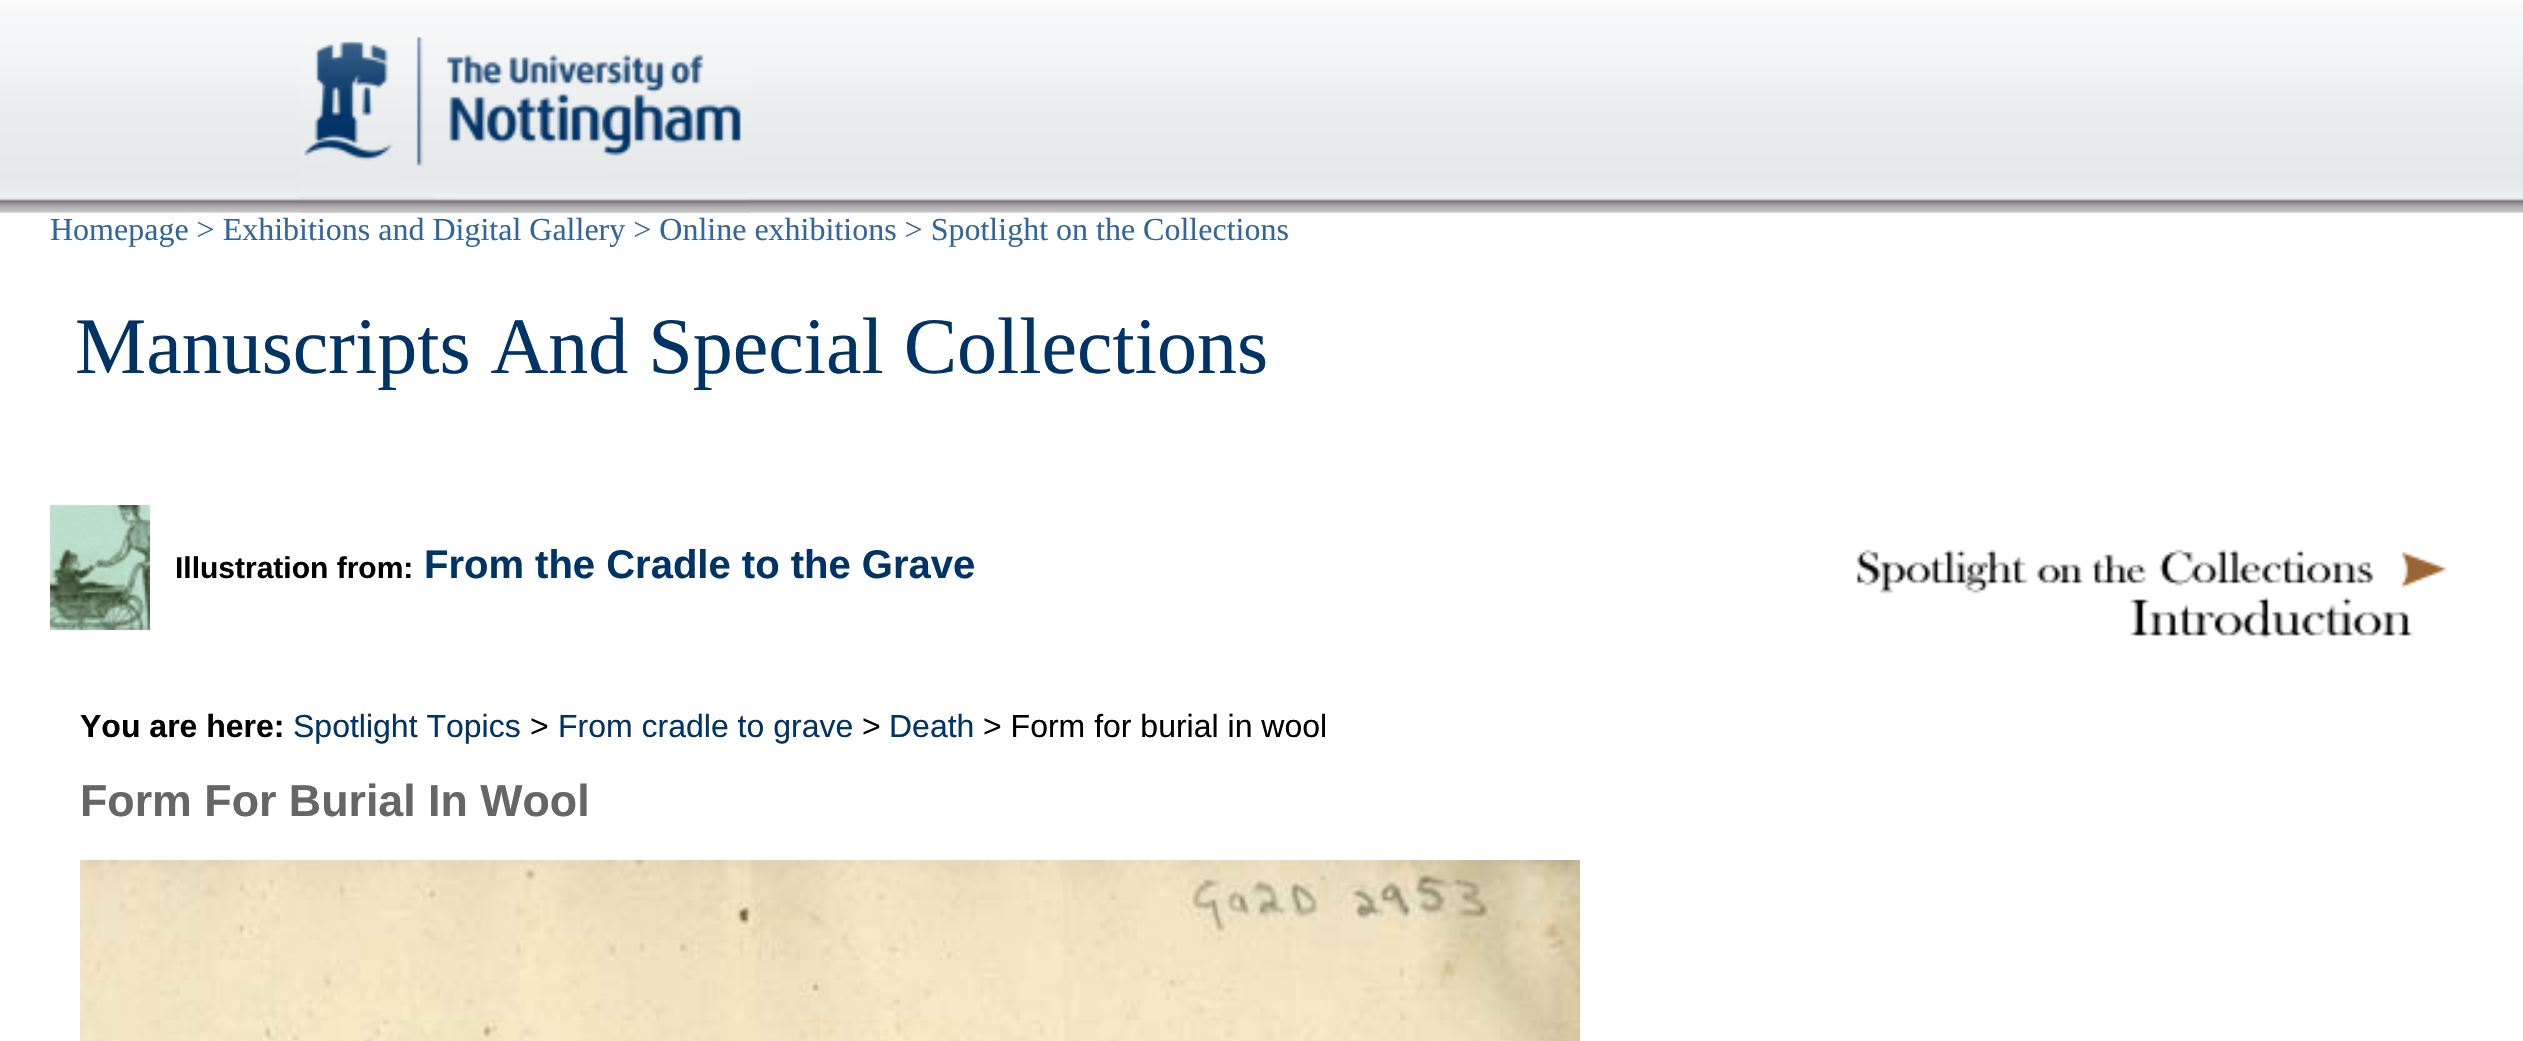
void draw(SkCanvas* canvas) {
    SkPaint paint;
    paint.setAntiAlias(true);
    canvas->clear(0xFFFFFFFF);
    canvas->drawImageRect(SkImages::DeferredFromEncodedData(SkData::MakeFromFileName("img1.png")), SkRect::MakeXYWH(0, 0, 2523, 213), SkSamplingOptions());
    canvas->drawImageRect(SkImages::DeferredFromEncodedData(SkData::MakeFromFileName("img2.png")), SkRect::MakeXYWH(300, 36, 450, 177), SkSamplingOptions());
    SkFont font1(fontMgr->matchFamilyStyle("Liberation Serif", SkFontStyle::Normal()), 32);
    font1.setSubpixel(true);
    paint.setColor(0xFF336699);
    canvas->drawString("Homepage > Exhibitions and Digital Gallery > Online exhibitions > Spotlight on the Collections", 50, 240, font1, paint);
    SkFont font2(fontMgr->matchFamilyStyle("Liberation Serif", SkFontStyle::Normal()), 80);
    font2.setSubpixel(true);
    paint.setColor(0xFF003366);
    canvas->drawString("Manuscripts And Special Collections", 75, 373, font2, paint);
    canvas->drawImageRect(SkImages::DeferredFromEncodedData(SkData::MakeFromFileName("img3.png")), SkRect::MakeXYWH(50, 505, 100, 125), SkSamplingOptions());
    SkFont font3(fontMgr->matchFamilyStyle("Liberation Sans", SkFontStyle::Bold()), 30);
    font3.setSubpixel(true);
    paint.setColor(0xFF000000);
    canvas->drawString("Illustration from:", 175, 578, font3, paint);
    SkFont font4(fontMgr->matchFamilyStyle("Liberation Sans", SkFontStyle::Bold()), 40);
    font4.setSubpixel(true);
    paint.setColor(0xFF003366);
    canvas->drawString("From the Cradle to the Grave", 424, 578, font4, paint);
    canvas->drawImageRect(SkImages::DeferredFromEncodedData(SkData::MakeFromFileName("img4.png")), SkRect::MakeXYWH(1856, 549, 592, 90), SkSamplingOptions());
    SkFont font5(fontMgr->matchFamilyStyle("Liberation Sans", SkFontStyle::Bold()), 32);
    font5.setSubpixel(true);
    paint.setColor(0xFF000000);
    canvas->drawString("You are here:", 80, 737, font5, paint);
    SkFont font6(fontMgr->matchFamilyStyle("Liberation Sans", SkFontStyle::Normal()), 32);
    font6.setSubpixel(true);
    paint.setColor(0xFF003366);
    canvas->drawString("Spotlight Topics", 293, 737, font6, paint);
    paint.setColor(0xFF000000);
    canvas->drawString(">", 530, 737, font6, paint);
    paint.setColor(0xFF003366);
    canvas->drawString("From cradle to grave", 558, 737, font6, paint);
    paint.setColor(0xFF000000);
    canvas->drawString(">", 862, 737, font6, paint);
    paint.setColor(0xFF003366);
    canvas->drawString("Death", 889, 737, font6, paint);
    paint.setColor(0xFF000000);
    canvas->drawString("> Form for burial in wool", 983, 737, font6, paint);
    SkFont font7(fontMgr->matchFamilyStyle("Liberation Sans", SkFontStyle::Bold()), 44.75f);
    font7.setSubpixel(true);
    paint.setColor(0xFF666666);
    canvas->drawString("Form For Burial In Wool", 80, 816, font7, paint);
    canvas->drawImageRect(SkImages::DeferredFromEncodedData(SkData::MakeFromFileName("img5.png")), SkRect::MakeXYWH(80, 860, 1500, 181), SkSamplingOptions());
}
